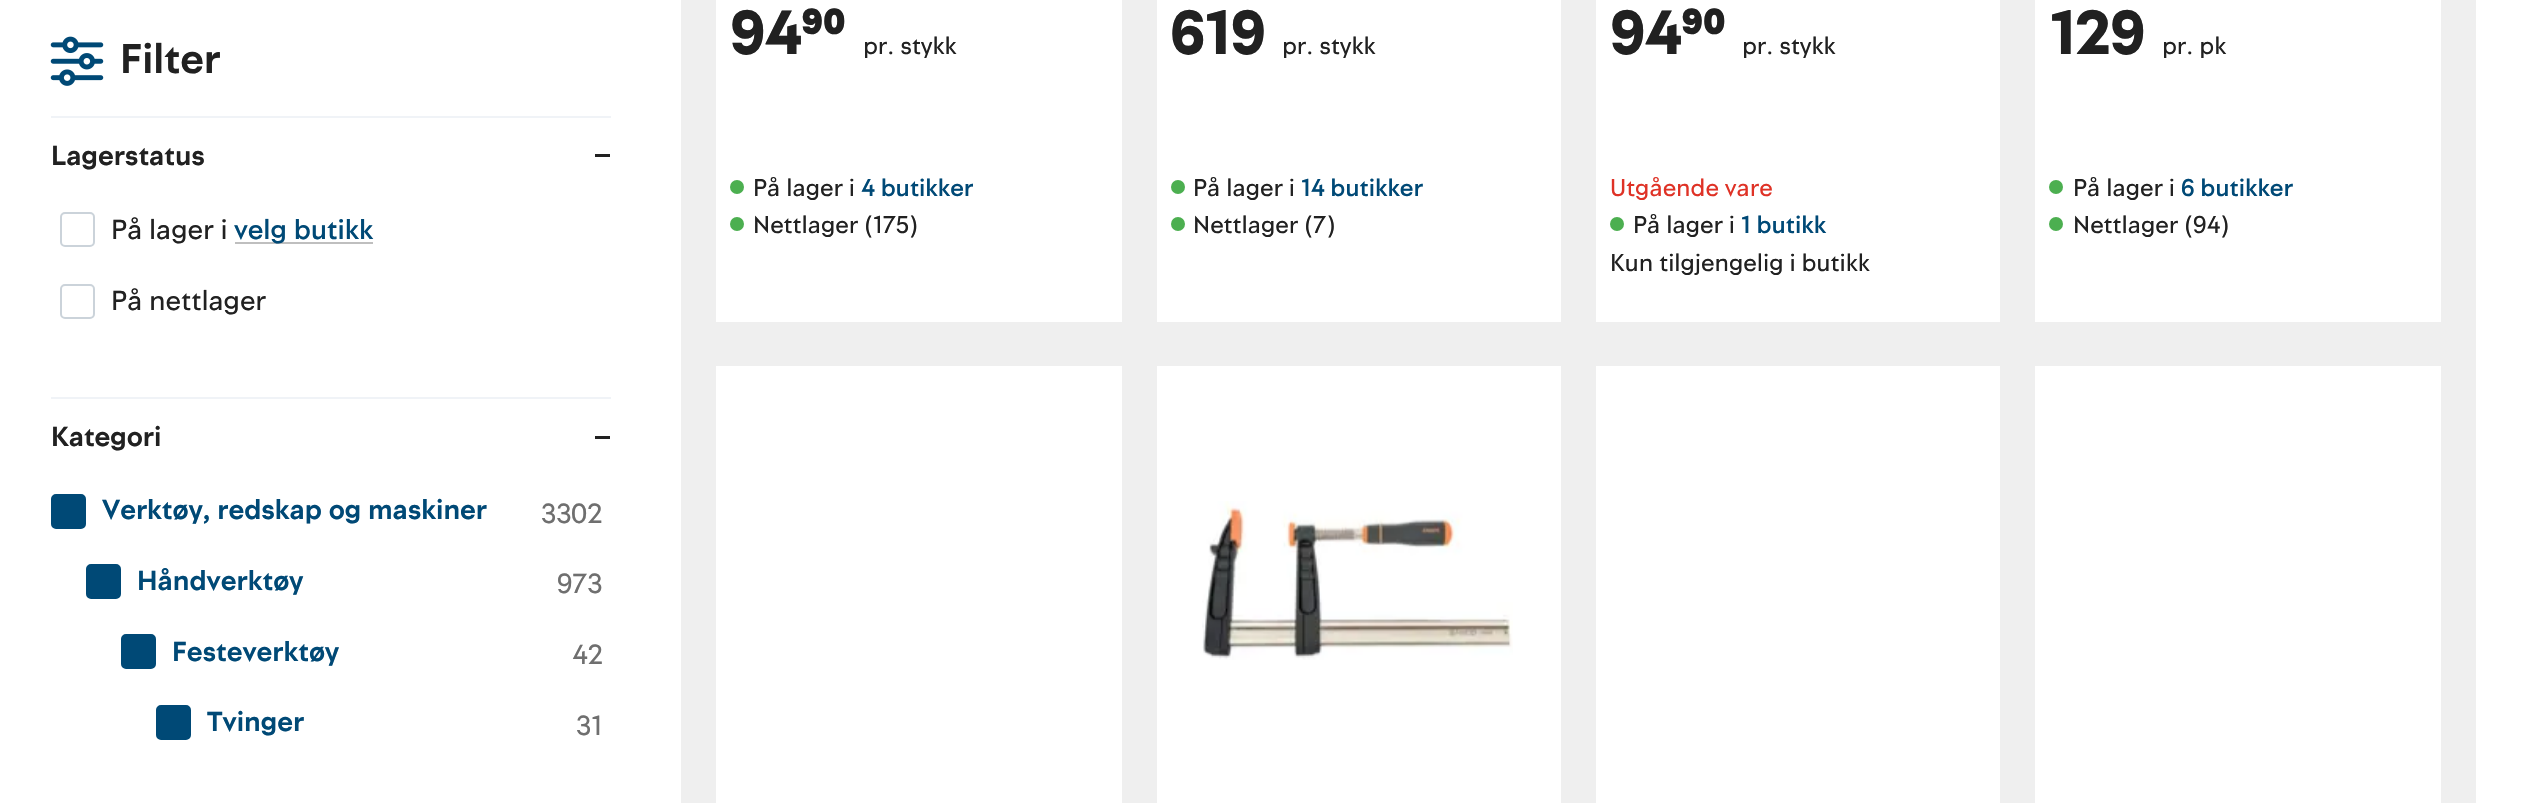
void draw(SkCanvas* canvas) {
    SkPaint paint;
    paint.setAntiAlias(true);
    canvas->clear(0xFFFFFFFF);
    canvas->drawImageRect(SkImages::DeferredFromEncodedData(SkData::MakeFromFileName("img1.png")), SkRect::MakeXYWH(50, 36, 54, 50), SkSamplingOptions());
    SkFont font1(fontMgr->matchFamilyStyle("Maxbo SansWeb", SkFontStyle::Bold()), 42);
    font1.setSubpixel(true);
    paint.setColor(0xFF212121);
    canvas->drawString("Filter", 120, 73, font1, paint);
    paint.setColor(0xFFF0F3F7);
    canvas->drawRect(SkRect::MakeXYWH(51, 116, 560, 2), paint);
    SkFont font2(fontMgr->matchFamilyStyle("Maxbo SansWeb", SkFontStyle::Bold()), 28);
    font2.setSubpixel(true);
    paint.setColor(0xFF212121);
    canvas->drawString("Lagerstatus", 51, 165, font2, paint);
    canvas->drawRect(SkRect::MakeXYWH(595, 154, 15, 3), paint);
    paint.setStyle(SkPaint::kStroke_Style);
    paint.setStrokeWidth(2);
    paint.setColor(0xFFCBD3DA);
    canvas->drawRoundRect(SkRect::MakeXYWH(61, 213, 33, 33), 4, 4, paint);
    SkFont font3(fontMgr->matchFamilyStyle("Maxbo SansWeb", SkFontStyle::Normal()), 28);
    font3.setSubpixel(true);
    paint.setStyle(SkPaint::kFill_Style);
    paint.setColor(0xFF212121);
    canvas->drawString("På lager i", 111, 239, font3, paint);
    paint.setColor(0xFFBFBFBF);
    canvas->drawRect(SkRect::MakeXYWH(235, 242, 138, 2), paint);
    SkFont font4(fontMgr->matchFamilyStyle("Maxbo SansWeb", SkFontStyle(500, SkFontStyle::kNormal_Width, SkFontStyle::kUpright_Slant)), 28);
    font4.setSubpixel(true);
    paint.setColor(0xFF004976);
    canvas->drawString("velg butikk", 234, 239, font4, paint);
    paint.setStyle(SkPaint::kStroke_Style);
    paint.setColor(0xFFCBD3DA);
    canvas->drawRoundRect(SkRect::MakeXYWH(61, 285, 33, 33), 4, 4, paint);
    paint.setStyle(SkPaint::kFill_Style);
    paint.setColor(0xFF212121);
    canvas->drawString("På nettlager", 111, 310, font3, paint);
    paint.setColor(0xFFF0F3F7);
    canvas->drawRect(SkRect::MakeXYWH(51, 397, 560, 2), paint);
    paint.setColor(0xFF212121);
    canvas->drawString("Kategori", 51, 446, font2, paint);
    canvas->drawRect(SkRect::MakeXYWH(595, 436, 15, 3), paint);
    paint.setColor(0xFF004976);
    canvas->drawRoundRect(SkRect::MakeXYWH(52, 495, 33, 33), 4, 4, paint);
    paint.setStyle(SkPaint::kStroke_Style);
    canvas->drawRoundRect(SkRect::MakeXYWH(52, 495, 33, 33), 4, 4, paint);
    paint.setStyle(SkPaint::kFill_Style);
    canvas->drawString("Verktøy, redskap og maskiner", 102, 519, font2, paint);
    paint.setColor(0xFF6F6F6F);
    canvas->drawString("3302", 541, 523, font3, paint);
    paint.setColor(0xFF004976);
    canvas->drawRoundRect(SkRect::MakeXYWH(87, 565, 33, 33), 4, 4, paint);
    paint.setStyle(SkPaint::kStroke_Style);
    canvas->drawRoundRect(SkRect::MakeXYWH(87, 565, 33, 33), 4, 4, paint);
    paint.setStyle(SkPaint::kFill_Style);
    canvas->drawString("Håndverktøy", 137, 590, font2, paint);
    paint.setColor(0xFF6F6F6F);
    canvas->drawString("973", 557, 593, font3, paint);
    paint.setColor(0xFF004976);
    canvas->drawRoundRect(SkRect::MakeXYWH(122, 635, 33, 33), 4, 4, paint);
    paint.setStyle(SkPaint::kStroke_Style);
    canvas->drawRoundRect(SkRect::MakeXYWH(122, 635, 33, 33), 4, 4, paint);
    paint.setStyle(SkPaint::kFill_Style);
    canvas->drawString("Festeverktøy", 172, 661, font2, paint);
    paint.setColor(0xFF6F6F6F);
    canvas->drawString("42", 572, 664, font3, paint);
    paint.setColor(0xFF004976);
    canvas->drawRoundRect(SkRect::MakeXYWH(157, 706, 33, 33), 4, 4, paint);
    paint.setStyle(SkPaint::kStroke_Style);
    canvas->drawRoundRect(SkRect::MakeXYWH(157, 706, 33, 33), 4, 4, paint);
    paint.setStyle(SkPaint::kFill_Style);
    canvas->drawString("Tvinger", 207, 731, font2, paint);
    paint.setColor(0xFF6F6F6F);
    canvas->drawString("31", 576, 735, font3, paint);
    paint.setColor(0xFFEFEFEF);
    canvas->drawRect(SkRect::MakeXYWH(681, 0, 1795, 803), paint);
    paint.setColor(0xFFFFFFFF);
    canvas->drawRect(SkRect::MakeXYWH(716, 0, 406, 322), paint);
    SkFont font5(fontMgr->matchFamilyStyle("Maxbo SansWeb", SkFontStyle(900, SkFontStyle::kNormal_Width, SkFontStyle::kUpright_Slant)), 63);
    font5.setSubpixel(true);
    paint.setColor(0xFF212121);
    canvas->drawString("94⁹⁰", 730, 54, font5, paint);
    SkFont font6(fontMgr->matchFamilyStyle("Maxbo SansWeb", SkFontStyle::Normal()), 24.5f);
    font6.setSubpixel(true);
    canvas->drawString("pr. stykk", 863, 54, font6, paint);
    paint.setColor(0xFF4CAF50);
    canvas->drawCircle(737, 187, 7, paint);
    paint.setColor(0xFF212121);
    canvas->drawString("På lager i", 753, 196, font6, paint);
    SkFont font7(fontMgr->matchFamilyStyle("Maxbo SansWeb", SkFontStyle(500, SkFontStyle::kNormal_Width, SkFontStyle::kUpright_Slant)), 24.5f);
    font7.setSubpixel(true);
    paint.setColor(0xFF004976);
    canvas->drawString("4 butikker", 861, 196, font7, paint);
    paint.setColor(0xFF4CAF50);
    canvas->drawCircle(737, 224, 7, paint);
    paint.setColor(0xFF212121);
    canvas->drawString("Nettlager (175)", 753, 233, font6, paint);
    paint.setColor(0xFFFFFFFF);
    canvas->drawRect(SkRect::MakeXYWH(1157, 0, 404, 322), paint);
    paint.setColor(0xFF212121);
    canvas->drawString("619", 1170, 54, font5, paint);
    canvas->drawString("pr. stykk", 1282, 54, font6, paint);
    paint.setColor(0xFF4CAF50);
    canvas->drawCircle(1178, 187, 7, paint);
    paint.setColor(0xFF212121);
    canvas->drawString("På lager i", 1193, 196, font6, paint);
    paint.setColor(0xFF004976);
    canvas->drawString("14 butikker", 1301, 196, font7, paint);
    paint.setColor(0xFF4CAF50);
    canvas->drawCircle(1178, 224, 7, paint);
    paint.setColor(0xFF212121);
    canvas->drawString("Nettlager (7)", 1193, 233, font6, paint);
    paint.setColor(0xFFFFFFFF);
    canvas->drawRect(SkRect::MakeXYWH(1596, 0, 404, 322), paint);
    paint.setColor(0xFF212121);
    canvas->drawString("94⁹⁰", 1610, 54, font5, paint);
    canvas->drawString("pr. stykk", 1742, 54, font6, paint);
    paint.setColor(0xFFDF3226);
    canvas->drawString("Utgående vare", 1610, 196, font6, paint);
    paint.setColor(0xFF4CAF50);
    canvas->drawCircle(1617, 224, 7, paint);
    paint.setColor(0xFF212121);
    canvas->drawString("På lager i", 1633, 233, font6, paint);
    paint.setColor(0xFF004976);
    canvas->drawString("1 butikk", 1741, 233, font7, paint);
    paint.setColor(0xFF212121);
    canvas->drawString("Kun tilgjengelig i butikk", 1610, 271, font6, paint);
    paint.setColor(0xFFFFFFFF);
    canvas->drawRect(SkRect::MakeXYWH(2035, 0, 406, 322), paint);
    paint.setColor(0xFF212121);
    canvas->drawString("129", 2050, 54, font5, paint);
    canvas->drawString("pr. pk", 2162, 54, font6, paint);
    paint.setColor(0xFF4CAF50);
    canvas->drawCircle(2056, 187, 7, paint);
    paint.setColor(0xFF212121);
    canvas->drawString("På lager i", 2073, 196, font6, paint);
    paint.setColor(0xFF004976);
    canvas->drawString("6 butikker", 2181, 196, font7, paint);
    paint.setColor(0xFF4CAF50);
    canvas->drawCircle(2056, 224, 7, paint);
    paint.setColor(0xFF212121);
    canvas->drawString("Nettlager (94)", 2073, 233, font6, paint);
    paint.setColor(0xFFFFFFFF);
    canvas->drawRect(SkRect::MakeXYWH(716, 366, 406, 437), paint);
    canvas->drawRect(SkRect::MakeXYWH(1157, 366, 404, 437), paint);
    canvas->drawImageRect(SkImages::DeferredFromEncodedData(SkData::MakeFromFileName("img2.png")), SkRect::MakeXYWH(1202, 501, 311, 159), SkSamplingOptions());
    canvas->drawRect(SkRect::MakeXYWH(1596, 366, 404, 437), paint);
    canvas->drawRect(SkRect::MakeXYWH(2035, 366, 406, 437), paint);
}
